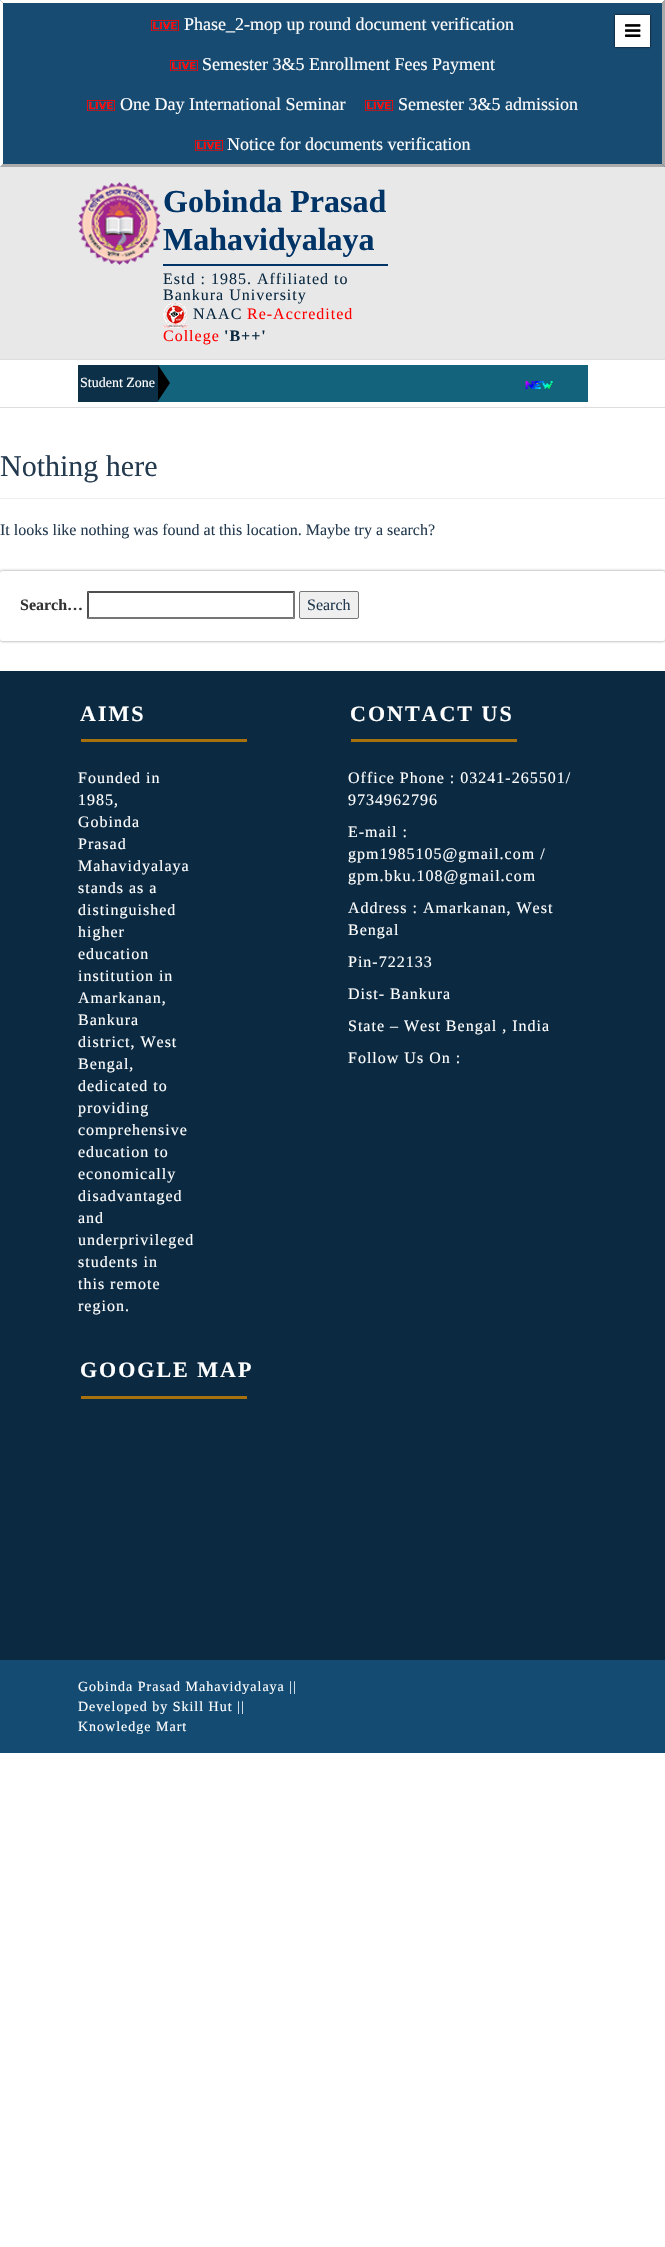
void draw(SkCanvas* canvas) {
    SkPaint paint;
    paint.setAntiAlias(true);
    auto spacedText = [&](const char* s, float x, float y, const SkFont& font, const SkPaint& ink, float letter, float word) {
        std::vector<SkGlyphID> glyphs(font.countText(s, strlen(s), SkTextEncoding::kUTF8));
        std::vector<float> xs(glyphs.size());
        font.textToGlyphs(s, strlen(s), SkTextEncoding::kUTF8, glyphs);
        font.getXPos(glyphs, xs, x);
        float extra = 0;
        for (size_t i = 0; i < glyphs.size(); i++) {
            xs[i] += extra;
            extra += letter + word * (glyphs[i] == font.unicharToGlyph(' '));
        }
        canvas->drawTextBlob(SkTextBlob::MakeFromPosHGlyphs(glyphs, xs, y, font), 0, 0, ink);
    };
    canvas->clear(0xFFFFFFFF);
    paint.setColor(0xFF184B71);
    canvas->drawRect(SkRect::MakeXYWH(0, 0, 665, 167), paint);
    paint.setColor(0xFFFFFFFF);
    canvas->drawPath(SkPathBuilder().moveTo(0, 0).lineTo(665, 0).lineTo(662, 3).lineTo(3, 3).close().detach(), paint);
    paint.setColor(0xFFAAAAAA);
    canvas->drawPath(SkPathBuilder().moveTo(665, 0).lineTo(665, 167).lineTo(662, 164).lineTo(662, 3).close().detach(), paint);
    canvas->drawPath(SkPathBuilder().moveTo(665, 167).lineTo(0, 167).lineTo(3, 164).lineTo(662, 164).close().detach(), paint);
    paint.setColor(0xFFFFFFFF);
    canvas->drawPath(SkPathBuilder().moveTo(0, 167).lineTo(0, 0).lineTo(3, 3).lineTo(3, 164).close().detach(), paint);
    canvas->drawImageRect(SkImages::DeferredFromEncodedData(SkData::MakeFromFileName("img1.png")), SkRect::MakeXYWH(151, 20, 28, 11), SkSamplingOptions());
    SkFont font1(fontMgr->matchFamilyStyle("Liberation Serif", SkFontStyle::Normal()), 18);
    font1.setSubpixel(true);
    canvas->drawString("Phase_2-mop up round document verification", 184, 30, font1, paint);
    canvas->drawImageRect(SkImages::DeferredFromEncodedData(SkData::MakeFromFileName("img2.png")), SkRect::MakeXYWH(170, 60, 28, 11), SkSamplingOptions());
    canvas->drawString("Semester 3&5 Enrollment Fees Payment", 202, 70, font1, paint);
    canvas->drawImageRect(SkImages::DeferredFromEncodedData(SkData::MakeFromFileName("img2.png")), SkRect::MakeXYWH(87, 100, 28, 11), SkSamplingOptions());
    canvas->drawString("One Day International Seminar", 120, 110, font1, paint);
    canvas->drawImageRect(SkImages::DeferredFromEncodedData(SkData::MakeFromFileName("img2.png")), SkRect::MakeXYWH(365, 100, 28, 11), SkSamplingOptions());
    canvas->drawString("Semester 3&5 admission", 398, 110, font1, paint);
    canvas->drawImageRect(SkImages::DeferredFromEncodedData(SkData::MakeFromFileName("img1.png")), SkRect::MakeXYWH(195, 140, 28, 11), SkSamplingOptions());
    canvas->drawString("Notice for documents verification", 227, 150, font1, paint);
    paint.setColor(0xFFE8E8E8);
    canvas->drawRect(SkRect::MakeXYWH(0, 167, 665, 192), paint);
    canvas->drawImageRect(SkImages::DeferredFromEncodedData(SkData::MakeFromFileName("img3.png")), SkRect::MakeXYWH(78, 182, 83, 83), SkSamplingOptions());
    paint.setColor(0xFF003366);
    canvas->drawRect(SkRect::MakeXYWH(163, 264, 225, 2), paint);
    SkFont font2(fontMgr->matchFamilyStyle("Liberation Serif", SkFontStyle::Bold()), 32);
    font2.setSubpixel(true);
    canvas->drawString("Gobinda Prasad", 163, 212, font2, paint);
    canvas->drawString("Mahavidyalaya", 163, 250, font2, paint);
    SkFont font3(fontMgr->matchFamilyStyle("Liberation Serif", SkFontStyle::Normal()), 16);
    font3.setSubpixel(true);
    paint.setColor(0xFF0B2A42);
    spacedText("Estd : 1985. Affiliated to", 163, 284, font3, paint, 1, 0);
    spacedText("Bankura University", 163, 300, font3, paint, 1, 0);
    canvas->drawImageRect(SkImages::DeferredFromEncodedData(SkData::MakeFromFileName("img4.png")), SkRect::MakeXYWH(163, 303, 25, 25), SkSamplingOptions());
    spacedText("NAAC", 193, 319, font3, paint, 1, 0);
    paint.setColor(0xFFFF0000);
    spacedText("Re-Accredited", 247, 319, font3, paint, 1, 0);
    spacedText("College", 163, 341, font3, paint, 1, 0);
    SkFont font4(fontMgr->matchFamilyStyle("Liberation Serif", SkFontStyle::Bold()), 16);
    font4.setSubpixel(true);
    paint.setColor(0xFF0B2A42);
    spacedText("'B++'", 224, 341, font4, paint, 1, 0);
    paint.setColor(0xFFDDDDDD);
    canvas->drawRect(SkRect::MakeXYWH(0, 359, 665, 1), paint);
    canvas->drawRect(SkRect::MakeXYWH(0, 407, 665, 1), paint);
    paint.setColor(0xFF13637D);
    canvas->drawRect(SkRect::MakeXYWH(158, 365, 430, 37), paint);
    paint.setColor(0xFF0B3047);
    canvas->drawRect(SkRect::MakeXYWH(78, 365, 80, 37), paint);
    SkFont font5(fontMgr->matchFamilyStyle("Liberation Serif", SkFontStyle::Normal()), 14);
    font5.setSubpixel(true);
    paint.setColor(0xFFFFFFFF);
    canvas->drawString("Student Zone", 80, 387, font5, paint);
    paint.setColor(0xFF000000);
    canvas->drawPath(SkPathBuilder().moveTo(158, 401).lineTo(158, 365).lineTo(170, 383).close().detach(), paint);
    canvas->drawImageRect(SkImages::DeferredFromEncodedData(SkData::MakeFromFileName("img5.png")), SkRect::MakeXYWH(525, 381, 28, 8), SkSamplingOptions());
    paint.setMaskFilter(SkMaskFilter::MakeBlur(kNormal_SkBlurStyle, 1));
    canvas->drawRect(SkRect::MakeXYWH(615, 15, 35, 32), paint);
    paint.setMaskFilter(nullptr);
    paint.setColor(0xFFFFFFFF);
    canvas->drawRect(SkRect::MakeXYWH(615, 15, 35, 32), paint);
    canvas->drawImageRect(SkImages::DeferredFromEncodedData(SkData::MakeFromFileName("img6.png")), SkRect::MakeXYWH(625, 24, 16, 13), SkSamplingOptions());
    paint.setColor(0xFFEEEEEE);
    canvas->drawRect(SkRect::MakeXYWH(0, 498, 665, 1), paint);
    SkFont font6(fontMgr->matchFamilyStyle("Liberation Serif", SkFontStyle::Normal()), 30);
    font6.setSubpixel(true);
    paint.setColor(0xFF243A4F);
    canvas->drawString("Nothing here", 0, 476, font6, paint);
    canvas->drawString("It looks like nothing was found at this location. Maybe try a search?", 0, 535, font3, paint);
    paint.setColor(0xFF888888);
    paint.setMaskFilter(SkMaskFilter::MakeBlur(kNormal_SkBlurStyle, 1.5f));
    canvas->drawRoundRect(SkRect::MakeXYWH(0, 571, 665, 70), 2, 2, paint);
    paint.setMaskFilter(nullptr);
    paint.setColor(0xFFFFFFFF);
    canvas->drawRoundRect(SkRect::MakeXYWH(0, 571, 665, 70), 2, 2, paint);
    paint.setColor(0xFF333333);
    canvas->drawString("Search…", 20, 610, font4, paint);
    paint.setColor(0xFF4F4F4F);
    canvas->drawPath(SkPathBuilder().moveTo(87, 591).lineTo(295, 591).lineTo(293, 593).lineTo(89, 593).close().detach(), paint);
    paint.setColor(0xFF767676);
    canvas->drawPath(SkPathBuilder().moveTo(295, 591).lineTo(295, 619).lineTo(293, 617).lineTo(293, 593).close().detach(), paint);
    canvas->drawPath(SkPathBuilder().moveTo(295, 619).lineTo(87, 619).lineTo(89, 617).lineTo(293, 617).close().detach(), paint);
    paint.setColor(0xFF4F4F4F);
    canvas->drawPath(SkPathBuilder().moveTo(87, 619).lineTo(87, 591).lineTo(89, 593).lineTo(89, 617).close().detach(), paint);
    paint.setColor(0xFFEFEFEF);
    canvas->drawRoundRect(SkRect::MakeXYWH(299.5f, 591.5f, 59, 27), 1.5f, 1.5f, paint);
    paint.setStyle(SkPaint::kStroke_Style);
    paint.setStrokeWidth(1);
    paint.setColor(0xFF767676);
    canvas->drawRoundRect(SkRect::MakeXYWH(299.5f, 591.5f, 59, 27), 1.5f, 1.5f, paint);
    paint.setStyle(SkPaint::kFill_Style);
    paint.setColor(0xFF243A4F);
    canvas->drawString("Search", 307, 610, font3, paint);
    paint.setColor(0xFF0B2A42);
    canvas->drawRect(SkRect::MakeXYWH(0, 671, 665, 989), paint);
    SkFont font7(fontMgr->matchFamilyStyle("Liberation Serif", SkFontStyle::Bold()), 22);
    font7.setSubpixel(true);
    paint.setColor(0xFFFFFFFF);
    spacedText("AIMS", 80, 721, font7, paint, 2, 0);
    paint.setColor(0xFFA7710E);
    canvas->drawRect(SkRect::MakeXYWH(81, 739, 166, 3), paint);
    paint.setColor(0xFFFFFFFF);
    spacedText("Founded in", 78, 783, font3, paint, 1, 0);
    spacedText("1985,", 78, 805, font3, paint, 1, 0);
    spacedText("Gobinda", 78, 827, font3, paint, 1, 0);
    spacedText("Prasad", 78, 849, font3, paint, 1, 0);
    spacedText("Mahavidyalaya", 78, 871, font3, paint, 1, 0);
    spacedText("stands as a", 78, 893, font3, paint, 1, 0);
    spacedText("distinguished", 78, 915, font3, paint, 1, 0);
    spacedText("higher", 78, 937, font3, paint, 1, 0);
    spacedText("education", 78, 959, font3, paint, 1, 0);
    spacedText("institution in", 78, 981, font3, paint, 1, 0);
    spacedText("Amarkanan,", 78, 1003, font3, paint, 1, 0);
    spacedText("Bankura", 78, 1025, font3, paint, 1, 0);
    spacedText("district, West", 78, 1047, font3, paint, 1, 0);
    spacedText("Bengal,", 78, 1069, font3, paint, 1, 0);
    spacedText("dedicated to", 78, 1091, font3, paint, 1, 0);
    spacedText("providing", 78, 1113, font3, paint, 1, 0);
    spacedText("comprehensive", 78, 1135, font3, paint, 1, 0);
    spacedText("education to", 78, 1157, font3, paint, 1, 0);
    spacedText("economically", 78, 1179, font3, paint, 1, 0);
    spacedText("disadvantaged", 78, 1201, font3, paint, 1, 0);
    spacedText("and", 78, 1223, font3, paint, 1, 0);
    spacedText("underprivileged", 78, 1245, font3, paint, 1, 0);
    spacedText("students in", 78, 1267, font3, paint, 1, 0);
    spacedText("this remote", 78, 1289, font3, paint, 1, 0);
    spacedText("region.", 78, 1311, font3, paint, 1, 0);
    spacedText("CONTACT US", 350, 721, font7, paint, 2, 0);
    paint.setColor(0xFFA7710E);
    canvas->drawRect(SkRect::MakeXYWH(351, 739, 166, 3), paint);
    paint.setColor(0xFFFFFFFF);
    spacedText("Office Phone : 03241-265501/", 348, 783, font3, paint, 1, 0);
    spacedText("9734962796", 348, 805, font3, paint, 1, 0);
    spacedText("E-mail :", 348, 837, font3, paint, 1, 0);
    spacedText("gpm1985105@gmail.com /", 348, 859, font3, paint, 1, 0);
    spacedText("gpm.bku.108@gmail.com", 348, 881, font3, paint, 1, 0);
    spacedText("Address : Amarkanan, West", 348, 913, font3, paint, 1, 0);
    spacedText("Bengal", 348, 935, font3, paint, 1, 0);
    spacedText("Pin-722133", 348, 967, font3, paint, 1, 0);
    spacedText("Dist- Bankura", 348, 999, font3, paint, 1, 0);
    spacedText("State – West Bengal , India", 348, 1031, font3, paint, 1, 0);
    spacedText("Follow Us On :", 348, 1063, font3, paint, 1, 0);
    spacedText("GOOGLE MAP", 80, 1377, font7, paint, 2, 0);
    paint.setColor(0xFFA7710E);
    canvas->drawRect(SkRect::MakeXYWH(81, 1396, 166, 3), paint);
    paint.setColor(0xFF134B72);
    canvas->drawRect(SkRect::MakeXYWH(0, 1660, 665, 93), paint);
    paint.setColor(0xFFFFFFFF);
    spacedText("Gobinda Prasad Mahavidyalaya ||", 78, 1691, font5, paint, 1, 0);
    spacedText("Developed by Skill Hut ||", 78, 1711, font5, paint, 1, 0);
    spacedText("Knowledge Mart", 78, 1731, font5, paint, 1, 0);
}
